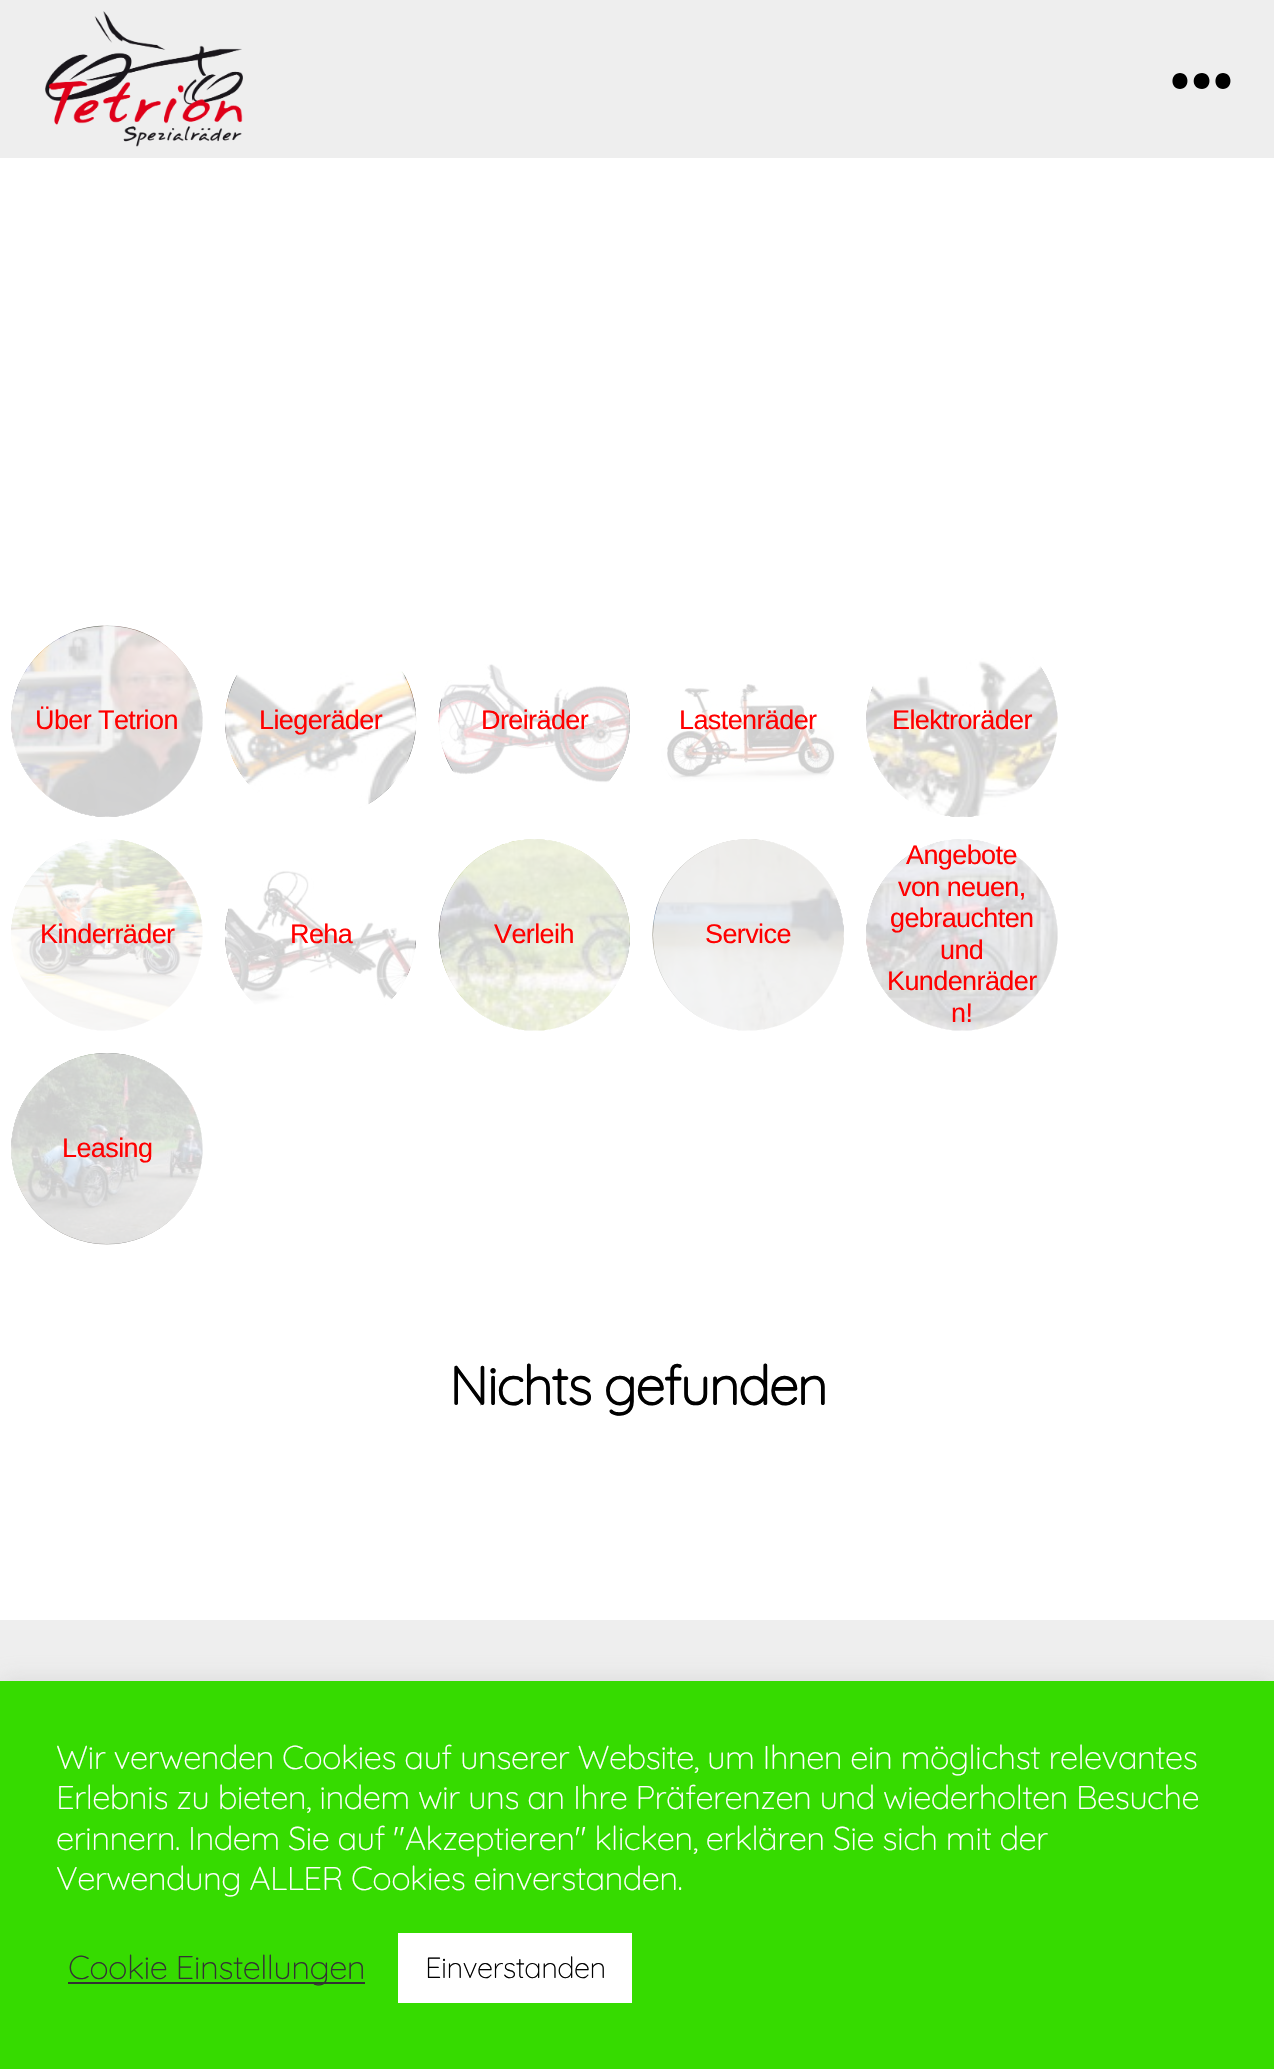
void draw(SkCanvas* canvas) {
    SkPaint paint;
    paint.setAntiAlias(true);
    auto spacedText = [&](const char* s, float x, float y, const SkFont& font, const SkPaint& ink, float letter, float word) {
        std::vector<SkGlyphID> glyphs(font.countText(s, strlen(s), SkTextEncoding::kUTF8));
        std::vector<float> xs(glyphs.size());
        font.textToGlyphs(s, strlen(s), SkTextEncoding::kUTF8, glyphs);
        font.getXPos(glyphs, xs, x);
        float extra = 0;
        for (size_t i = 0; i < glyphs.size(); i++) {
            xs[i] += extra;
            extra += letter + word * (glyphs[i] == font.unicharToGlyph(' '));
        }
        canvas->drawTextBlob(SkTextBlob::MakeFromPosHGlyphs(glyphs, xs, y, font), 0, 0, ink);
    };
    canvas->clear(0xFFFFFFFF);
    paint.setColor(0xFFEEEEEE);
    canvas->drawRect(SkRect::MakeXYWH(0, 0, 1274, 158), paint);
    canvas->drawImageRect(SkImages::DeferredFromEncodedData(SkData::MakeFromFileName("img1.png")), SkRect::MakeXYWH(45, 11, 198, 136), SkSamplingOptions());
    paint.setColor(0xFF000000);
    canvas->drawPath(SkPathBuilder(SkPathFillType::kEvenOdd).moveTo(1180, 89).cubicTo(1170, 89, 1170, 73, 1180, 73).cubicTo(1190, 73, 1190, 89, 1180, 89).close().moveTo(1202, 89).cubicTo(1191, 89, 1191, 73, 1202, 73).cubicTo(1212, 73, 1212, 89, 1202, 89).close().moveTo(1223, 89).cubicTo(1213, 89, 1213, 73, 1223, 73).cubicTo(1233, 73, 1233, 89, 1223, 89).close().detach(), paint);
    canvas->drawImageRect(SkImages::DeferredFromEncodedData(SkData::MakeFromFileName("img2.png")), SkRect::MakeXYWH(11, 625, 192, 192), SkSamplingOptions());
    paint.setColor(0xCCFFFFFF);
    canvas->drawRoundRect(SkRect::MakeXYWH(11, 626, 192, 191), 95.5f, 95.5f, paint);
    SkFont font1(fontMgr->matchFamilyStyle("Liberation Sans", SkFontStyle::Normal()), 27);
    font1.setSubpixel(true);
    paint.setColor(0xFFFF0000);
    spacedText("Über Tetrion", 35, 729, font1, paint, -0.6f, 0);
    canvas->drawImageRect(SkImages::DeferredFromEncodedData(SkData::MakeFromFileName("img3.png")), SkRect::MakeXYWH(225, 671, 192, 137), SkSamplingOptions());
    paint.setColor(0xCCFFFFFF);
    canvas->drawCircle(320.5f, 721.5f, 95.5f, paint);
    paint.setColor(0xFFFF0000);
    spacedText("Liegeräder", 259, 729, font1, paint, -0.6f, 0);
    canvas->drawImageRect(SkImages::DeferredFromEncodedData(SkData::MakeFromFileName("img4.png")), SkRect::MakeXYWH(438, 663, 192, 123), SkSamplingOptions());
    paint.setColor(0xCCFFFFFF);
    canvas->drawCircle(534.5f, 721.5f, 95.5f, paint);
    paint.setColor(0xFFFF0000);
    spacedText("Dreiräder", 481, 729, font1, paint, -0.6f, 0);
    canvas->drawImageRect(SkImages::DeferredFromEncodedData(SkData::MakeFromFileName("img5.png")), SkRect::MakeXYWH(661, 684, 179, 98), SkSamplingOptions());
    paint.setColor(0xCCFFFFFF);
    canvas->drawCircle(748.5f, 721.5f, 95.5f, paint);
    paint.setColor(0xFFFF0000);
    spacedText("Lastenräder", 679, 729, font1, paint, -0.6f, 0);
    canvas->drawImageRect(SkImages::DeferredFromEncodedData(SkData::MakeFromFileName("img6.png")), SkRect::MakeXYWH(866, 657, 192, 160), SkSamplingOptions());
    paint.setColor(0xCCFFFFFF);
    canvas->drawRoundRect(SkRect::MakeXYWH(866, 626, 192, 191), 95.5f, 95.5f, paint);
    paint.setColor(0xFFFF0000);
    spacedText("Elektroräder", 892, 729, font1, paint, -0.6f, 0);
    canvas->drawImageRect(SkImages::DeferredFromEncodedData(SkData::MakeFromFileName("img7.png")), SkRect::MakeXYWH(11, 839, 192, 192), SkSamplingOptions());
    paint.setColor(0xCCFFFFFF);
    canvas->drawCircle(107, 935, 96, paint);
    paint.setColor(0xFFFF0000);
    spacedText("Kinderräder", 40, 943, font1, paint, -0.6f, 0);
    canvas->drawImageRect(SkImages::DeferredFromEncodedData(SkData::MakeFromFileName("img8.png")), SkRect::MakeXYWH(225, 870, 191, 135), SkSamplingOptions());
    paint.setColor(0xCCFFFFFF);
    canvas->drawRoundRect(SkRect::MakeXYWH(225, 839, 191, 192), 95.5f, 95.5f, paint);
    paint.setColor(0xFFFF0000);
    spacedText("Reha", 290, 943, font1, paint, -0.6f, 0);
    canvas->drawImageRect(SkImages::DeferredFromEncodedData(SkData::MakeFromFileName("img9.png")), SkRect::MakeXYWH(438, 839, 192, 192), SkSamplingOptions());
    paint.setColor(0xCCFFFFFF);
    canvas->drawRoundRect(SkRect::MakeXYWH(439, 839, 191, 192), 95.5f, 95.5f, paint);
    paint.setColor(0xFFFF0000);
    spacedText("Verleih", 494, 943, font1, paint, -0.6f, 0);
    canvas->drawImageRect(SkImages::DeferredFromEncodedData(SkData::MakeFromFileName("img10.png")), SkRect::MakeXYWH(652, 839, 192, 192), SkSamplingOptions());
    paint.setColor(0xCCFFFFFF);
    canvas->drawRoundRect(SkRect::MakeXYWH(653, 839, 191, 192), 95.5f, 95.5f, paint);
    paint.setColor(0xFFFF0000);
    spacedText("Service", 705, 943, font1, paint, -0.6f, 0);
    canvas->drawImageRect(SkImages::DeferredFromEncodedData(SkData::MakeFromFileName("img11.png")), SkRect::MakeXYWH(866, 839, 192, 192), SkSamplingOptions());
    paint.setColor(0xCCFFFFFF);
    canvas->drawCircle(962, 935, 96, paint);
    paint.setColor(0xFFFF0000);
    spacedText("Angebote", 906, 864, font1, paint, -0.6f, 0);
    spacedText("von neuen,", 898, 896, font1, paint, -0.6f, 0);
    spacedText("gebrauchten", 890, 927, font1, paint, -0.6f, 0);
    spacedText("und", 940, 959, font1, paint, -0.6f, 0);
    spacedText("Kundenräder", 887, 990, font1, paint, -0.6f, 0);
    spacedText("n!", 951, 1022, font1, paint, -0.6f, 0);
    canvas->drawImageRect(SkImages::DeferredFromEncodedData(SkData::MakeFromFileName("img12.png")), SkRect::MakeXYWH(11, 1053, 192, 192), SkSamplingOptions());
    paint.setColor(0xCCFFFFFF);
    canvas->drawRoundRect(SkRect::MakeXYWH(11, 1053, 192, 191), 95.5f, 95.5f, paint);
    paint.setColor(0xFFFF0000);
    spacedText("Leasing", 62, 1157, font1, paint, -0.6f, 0);
    SkFont font2(fontMgr->matchFamilyStyle("Quicksand", SkFontStyle::Bold()), 54);
    font2.setSubpixel(true);
    paint.setColor(0xFF000000);
    spacedText("Nichts gefunden", 449, 1405, font2, paint, -1.5f, 0);
    paint.setColor(0xFFEEEEEE);
    canvas->drawRect(SkRect::MakeXYWH(0, 1620, 1274, 61), paint);
    paint.setColor(0x4DACABAB);
    paint.setMaskFilter(SkMaskFilter::MakeBlur(kNormal_SkBlurStyle, 11));
    canvas->drawRect(SkRect::MakeXYWH(0, 1679, 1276, 389), paint);
    paint.setMaskFilter(nullptr);
    paint.setColor(0xFF36DB00);
    canvas->drawRect(SkRect::MakeXYWH(0, 1681, 1274, 388), paint);
    SkFont font3(fontMgr->matchFamilyStyle("Quicksand", SkFontStyle(300, SkFontStyle::kNormal_Width, SkFontStyle::kUpright_Slant)), 33);
    font3.setSubpixel(true);
    paint.setColor(0xFFFFFFFF);
    spacedText("Wir verwenden Cookies auf unserer Website, um Ihnen ein möglichst relevantes", 56, 1769, font3, paint, -0.6f, 0);
    spacedText("Erlebnis zu bieten, indem wir uns an Ihre Präferenzen und wiederholten Besuche", 56, 1809, font3, paint, -0.6f, 0);
    spacedText("erinnern. Indem Sie auf \"Akzeptieren\" klicken, erklären Sie sich mit der", 56, 1850, font3, paint, -0.6f, 0);
    spacedText("Verwendung ALLER Cookies einverstanden.", 56, 1890, font3, paint, -0.6f, 0);
    paint.setColor(0xFF333333);
    canvas->drawRect(SkRect::MakeXYWH(68, 1982, 297, 2), paint);
    spacedText("Cookie Einstellungen", 68, 1979, font3, paint, -0.6f, 0);
    paint.setColor(0xFFFFFFFF);
    canvas->drawRect(SkRect::MakeXYWH(398, 1933, 234, 70), paint);
    SkFont font4(fontMgr->matchFamilyStyle("Quicksand", SkFontStyle(300, SkFontStyle::kNormal_Width, SkFontStyle::kUpright_Slant)), 29.25f);
    font4.setSubpixel(true);
    paint.setColor(0xFF000000);
    spacedText("Einverstanden", 425, 1978, font4, paint, -0.6f, 0);
}
